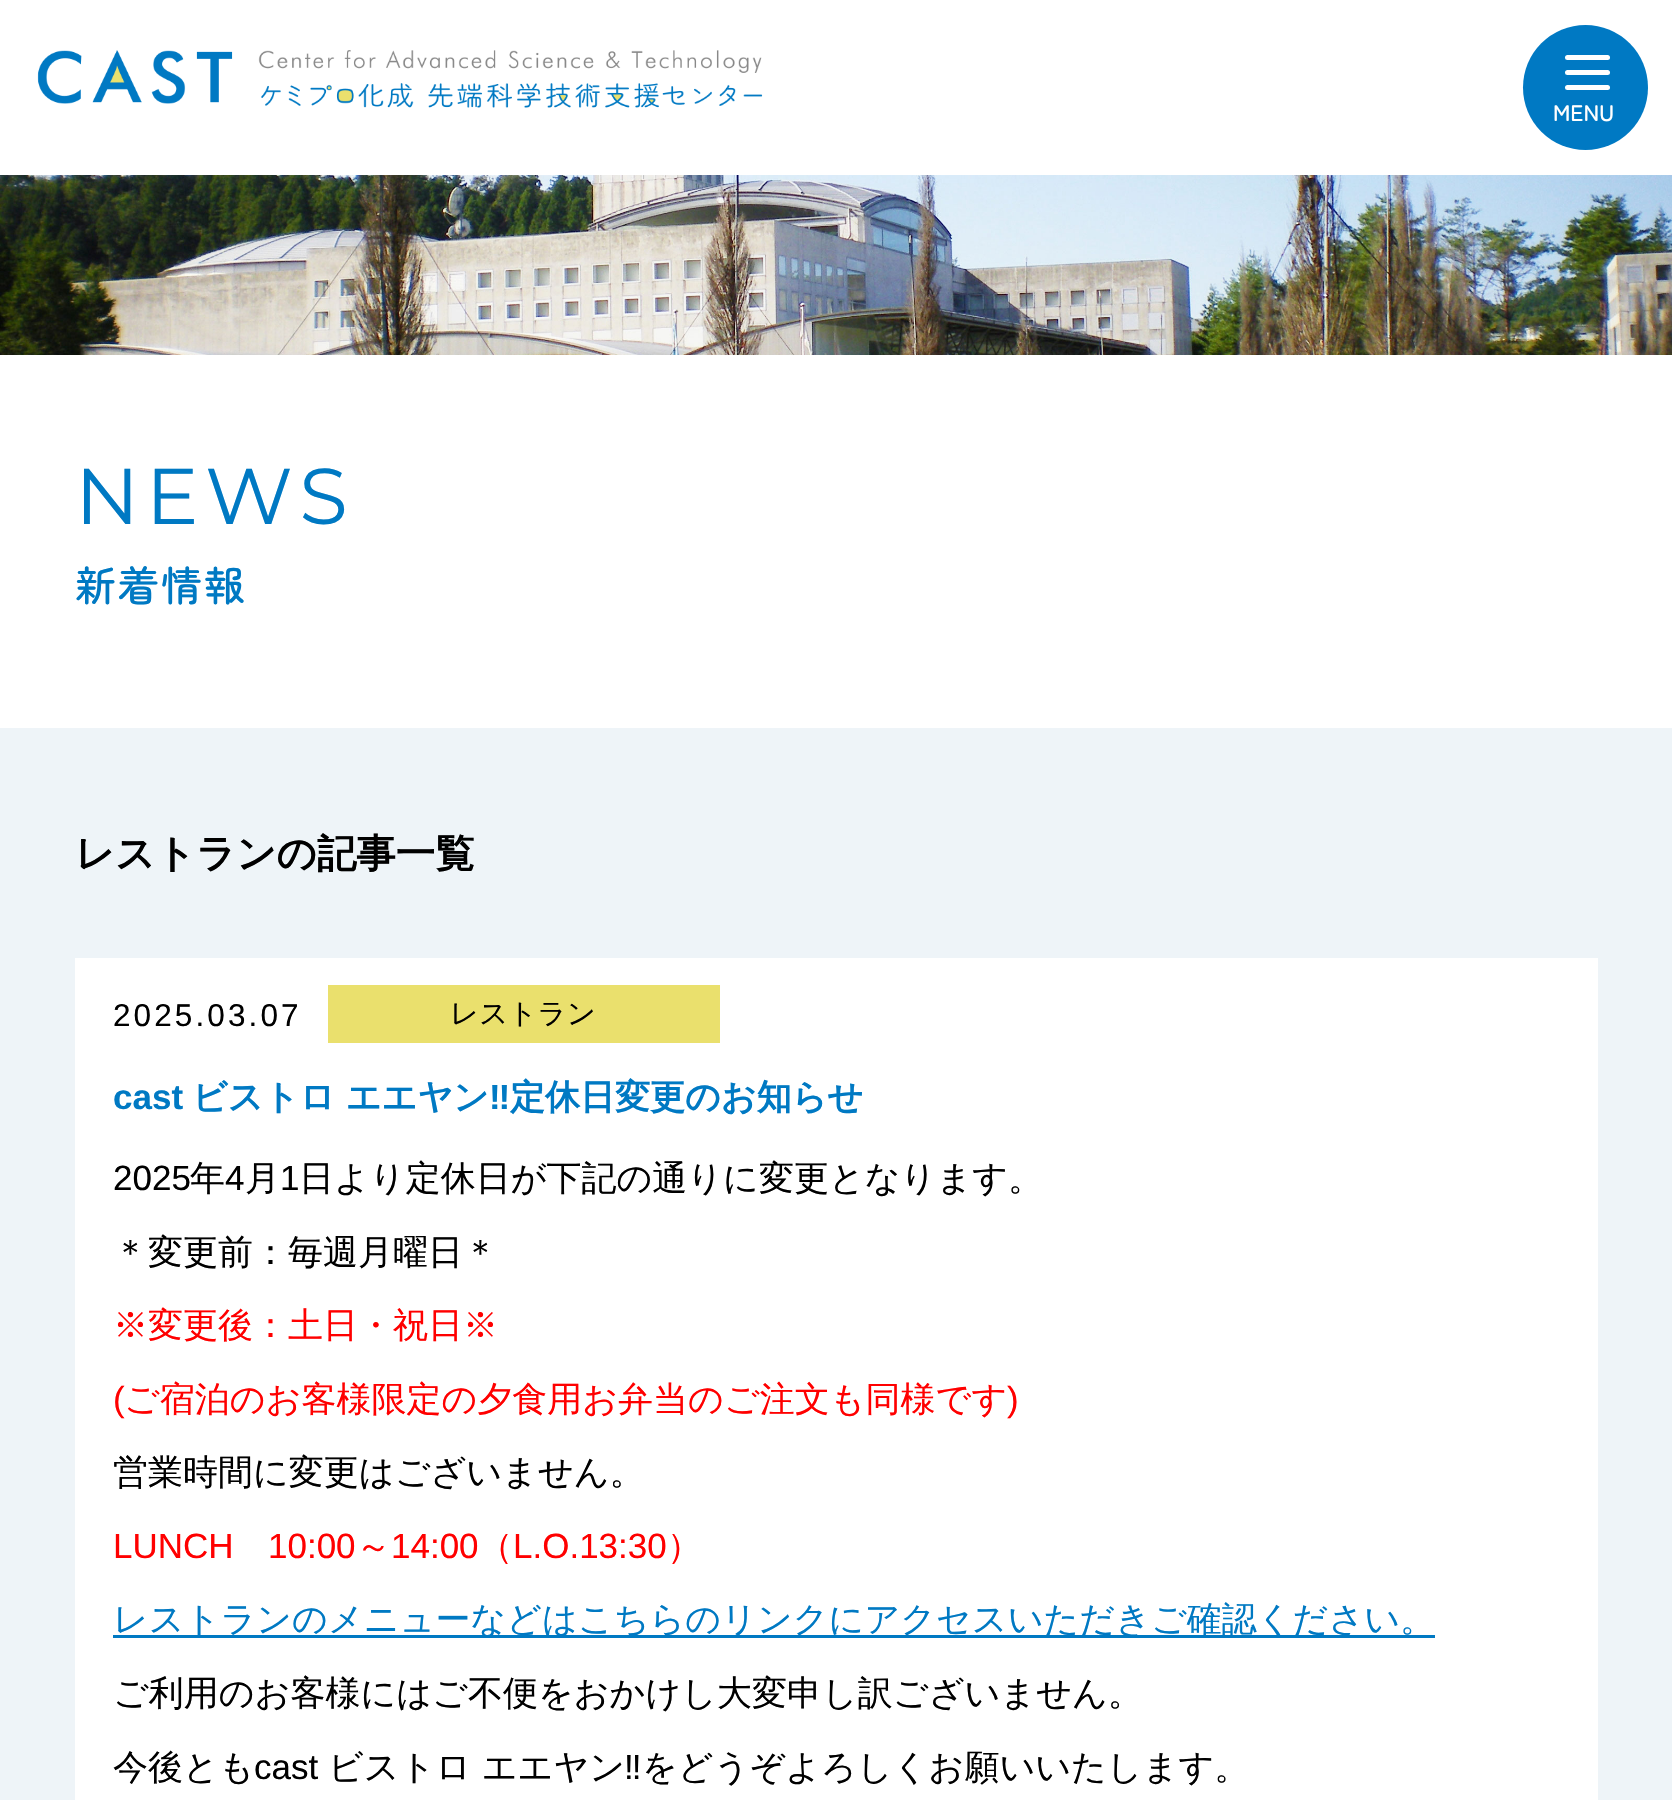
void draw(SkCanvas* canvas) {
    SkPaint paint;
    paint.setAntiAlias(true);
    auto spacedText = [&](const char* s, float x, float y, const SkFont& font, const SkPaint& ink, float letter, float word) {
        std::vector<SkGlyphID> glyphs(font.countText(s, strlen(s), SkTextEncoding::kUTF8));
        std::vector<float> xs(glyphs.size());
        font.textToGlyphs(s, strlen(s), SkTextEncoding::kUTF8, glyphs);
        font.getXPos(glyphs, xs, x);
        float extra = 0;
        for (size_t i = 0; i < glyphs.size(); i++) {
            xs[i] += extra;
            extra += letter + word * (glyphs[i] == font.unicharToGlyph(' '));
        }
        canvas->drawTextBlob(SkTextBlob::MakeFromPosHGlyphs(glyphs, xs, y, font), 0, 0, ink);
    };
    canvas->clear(0xFFFFFFFF);
    canvas->drawImageRect(SkImages::DeferredFromEncodedData(SkData::MakeFromFileName("img1.png")), SkRect::MakeXYWH(37, 50, 726, 58), SkSamplingOptions());
    paint.setColor(0xFF0079C3);
    canvas->drawCircle(1585.5f, 87.5f, 62.5f, paint);
    paint.setColor(0xFFFFFFFF);
    canvas->drawRoundRect(SkRect::MakeXYWH(1565, 55, 45, 5), 2.5f, 2.5f, paint);
    canvas->drawRoundRect(SkRect::MakeXYWH(1565, 70, 45, 5), 2.5f, 2.5f, paint);
    canvas->drawRoundRect(SkRect::MakeXYWH(1565, 85, 45, 5), 2.5f, 2.5f, paint);
    SkFont font1(fontMgr->matchFamilyStyle("Zen Maru Gothic", SkFontStyle(500, SkFontStyle::kNormal_Width, SkFontStyle::kUpright_Slant)), 22.5f);
    font1.setSubpixel(true);
    canvas->drawString("MENU", 1553, 121, font1, paint);
    canvas->drawImageRect(SkImages::DeferredFromEncodedData(SkData::MakeFromFileName("img2.png")), SkRect::MakeXYWH(0, 175, 1672, 180), SkSamplingOptions());
    SkFont font2(fontMgr->matchFamilyStyle("Montserrat", SkFontStyle(100, SkFontStyle::kNormal_Width, SkFontStyle::kUpright_Slant)), 79);
    font2.setSubpixel(true);
    paint.setColor(0xFF0079C3);
    spacedText("NEWS", 75, 524, font2, paint, 6.5f, 0);
    SkFont font3(fontMgr->matchFamilyStyle("Zen Maru Gothic", SkFontStyle(500, SkFontStyle::kNormal_Width, SkFontStyle::kUpright_Slant)), 41);
    font3.setSubpixel(true);
    spacedText("新着情報", 75, 601, font3, paint, 2, 0);
    paint.setColor(0xFFEEF4F8);
    canvas->drawRect(SkRect::MakeXYWH(0, 728, 1672, 1072), paint);
    SkFont font4(fontMgr->matchFamilyStyle("WenQuanYi Zen Hei", SkFontStyle::Bold()), 39.4f);
    font4.setSubpixel(true);
    paint.setColor(0xFF000000);
    canvas->drawString("レストランの記事一覧", 75, 867, font4, paint);
    paint.setColor(0xFFFFFFFF);
    canvas->drawRect(SkRect::MakeXYWH(75, 958, 1523, 842), paint);
    SkFont font5(fontMgr->matchFamilyStyle("Liberation Sans", SkFontStyle::Normal()), 31.5f);
    font5.setSubpixel(true);
    paint.setColor(0xFF000000);
    spacedText("2025.03.07", 113, 1026, font5, paint, 3.1f, 0);
    paint.setColor(0xFFEAE06D);
    canvas->drawRect(SkRect::MakeXYWH(328, 985, 392, 58), paint);
    SkFont font6(fontMgr->matchFamilyStyle("WenQuanYi Zen Hei", SkFontStyle(500, SkFontStyle::kNormal_Width, SkFontStyle::kUpright_Slant)), 28.5f);
    font6.setSubpixel(true);
    paint.setColor(0xFF000000);
    canvas->drawString("レストラン", 450, 1023, font6, paint);
    SkFont font7(fontMgr->matchFamilyStyle("Liberation Sans", SkFontStyle::Bold()), 35);
    font7.setSubpixel(true);
    paint.setColor(0xFF0079C3);
    canvas->drawString("cast", 113, 1109, font7, paint);
    SkFont font8(fontMgr->matchFamilyStyle("WenQuanYi Zen Hei", SkFontStyle::Bold()), 35);
    font8.setSubpixel(true);
    canvas->drawString("ビストロ エエヤン", 192, 1109, font8, paint);
    canvas->drawString("‼", 489, 1109, font7, paint);
    canvas->drawString("定休日変更のお知らせ", 510, 1109, font8, paint);
    SkFont font9(fontMgr->matchFamilyStyle("Liberation Sans", SkFontStyle::Normal()), 35);
    font9.setSubpixel(true);
    paint.setColor(0xFF000000);
    canvas->drawString("2025", 113, 1190, font9, paint);
    SkFont font10(fontMgr->matchFamilyStyle("WenQuanYi Zen Hei", SkFontStyle(500, SkFontStyle::kNormal_Width, SkFontStyle::kUpright_Slant)), 35);
    font10.setSubpixel(true);
    canvas->drawString("年", 190, 1190, font10, paint);
    canvas->drawString("4", 225, 1190, font9, paint);
    canvas->drawString("月", 245, 1190, font10, paint);
    canvas->drawString("1", 280, 1190, font9, paint);
    canvas->drawString("日より定休日が下記の通りに変更となります。", 299, 1190, font10, paint);
    canvas->drawString("＊変更前：毎週月曜日＊", 113, 1264, font10, paint);
    paint.setColor(0xFFFF0000);
    canvas->drawString("※変更後：土日・祝日※", 113, 1337, font10, paint);
    canvas->drawString("(", 113, 1411, font9, paint);
    canvas->drawString("ご宿泊のお客様限定の夕食用お弁当のご注文も同様です", 124, 1411, font10, paint);
    canvas->drawString(")", 1007, 1411, font9, paint);
    paint.setColor(0xFF000000);
    canvas->drawString("営業時間に変更はございません。", 113, 1484, font10, paint);
    paint.setColor(0xFFFF0000);
    canvas->drawString("LUNCH", 113, 1558, font9, paint);
    canvas->drawString("10:00", 268, 1558, font9, paint);
    canvas->drawString("～", 356, 1558, font10, paint);
    canvas->drawString("14:00", 391, 1558, font9, paint);
    canvas->drawString("（", 478, 1558, font10, paint);
    canvas->drawString("L.O.13:30", 513, 1558, font9, paint);
    canvas->drawString("）", 667, 1558, font10, paint);
    paint.setColor(0xFF0079C3);
    canvas->drawRect(SkRect::MakeXYWH(113, 1635, 1322, 3), paint);
    canvas->drawString("レストランのメニューなどはこちらのリンクにアクセスいただきご確認ください。", 113, 1631, font10, paint);
    paint.setColor(0xFF000000);
    canvas->drawString("ご利用のお客様にはご不便をおかけし大変申し訳ございません。", 113, 1705, font10, paint);
    canvas->drawString("今後とも", 113, 1779, font10, paint);
    canvas->drawString("cast", 254, 1779, font9, paint);
    canvas->drawString("ビストロ エエヤン", 328, 1779, font10, paint);
    canvas->drawString("‼", 624, 1779, font9, paint);
    canvas->drawString("をどうぞよろしくお願いいたします。", 642, 1779, font10, paint);
}
